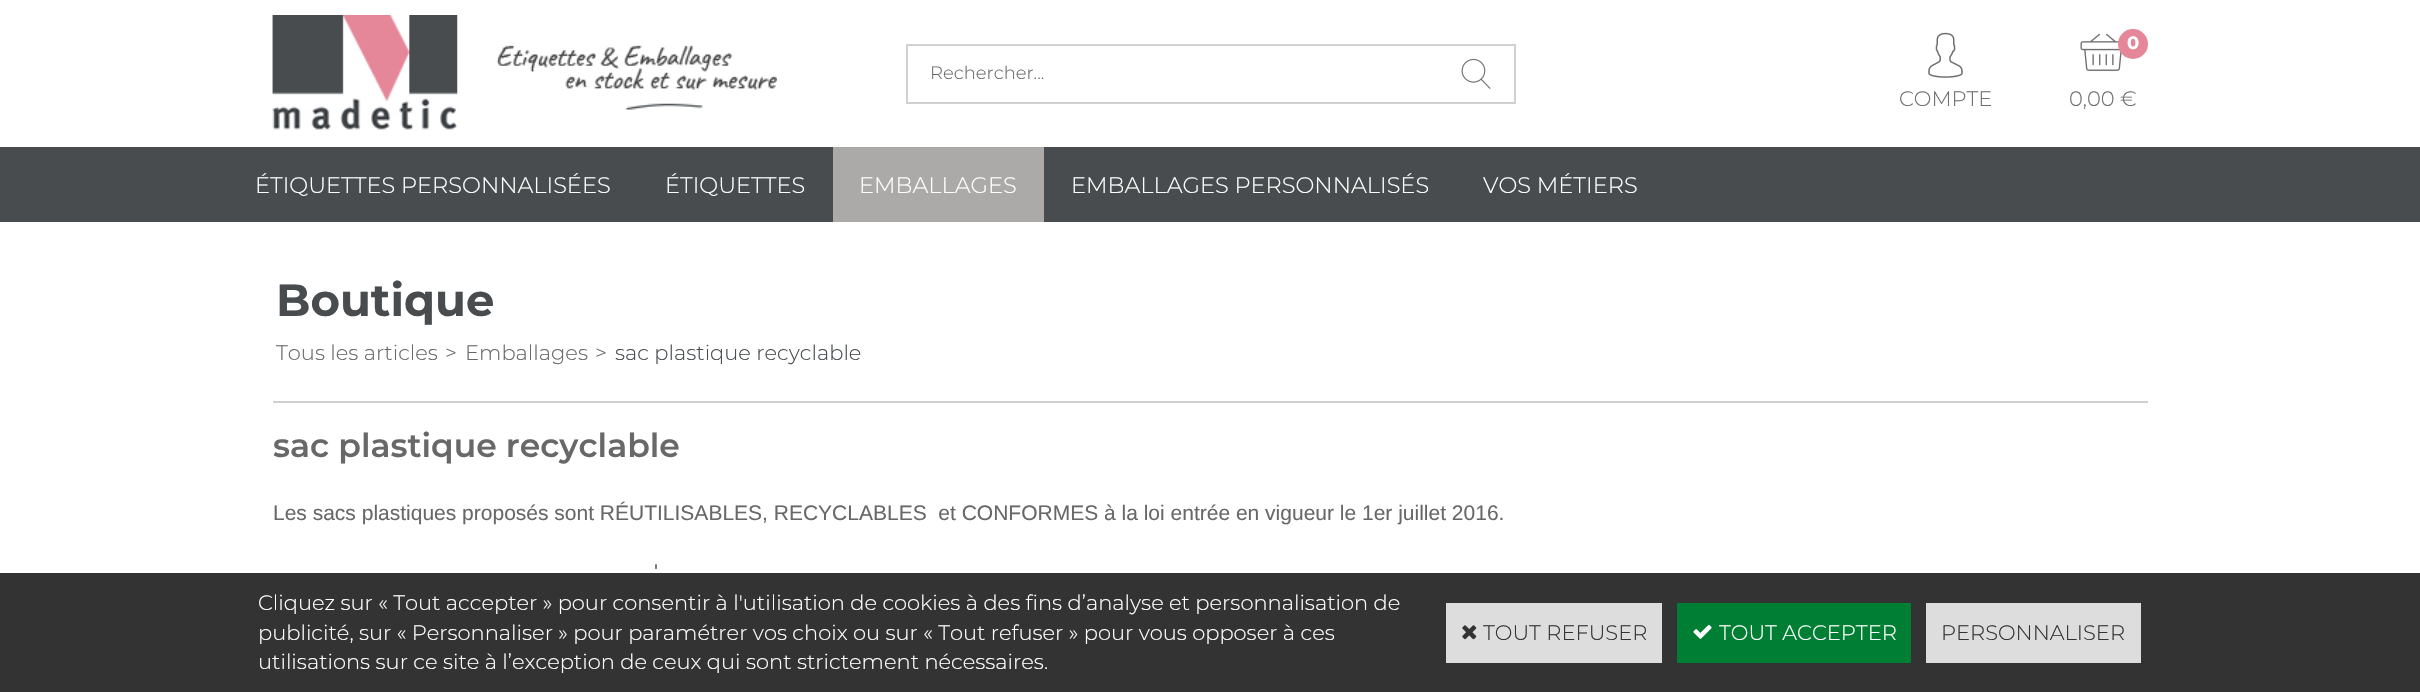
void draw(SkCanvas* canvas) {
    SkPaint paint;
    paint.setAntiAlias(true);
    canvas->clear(0xFFFFFFFF);
    canvas->drawImageRect(SkImages::DeferredFromEncodedData(SkData::MakeFromFileName("img1.png")), SkRect::MakeXYWH(272, 15, 505, 115), SkSamplingOptions());
    paint.setColor(0xFFD0D0D0);
    canvas->drawRect(SkRect::MakeXYWH(906, 44, 609, 2), paint);
    canvas->drawRect(SkRect::MakeXYWH(906, 102, 533, 2), paint);
    canvas->drawRect(SkRect::MakeXYWH(906, 44, 2, 60), paint);
    SkFont font1(fontMgr->matchFamilyStyle("Montserrat", SkFontStyle(300, SkFontStyle::kNormal_Width, SkFontStyle::kUpright_Slant)), 18);
    font1.setSubpixel(true);
    paint.setColor(0xFF686868);
    canvas->drawString("Rechercher...", 930, 79, font1, paint);
    paint.setColor(0xFFD0D0D0);
    canvas->drawRect(SkRect::MakeXYWH(1514, 44, 2, 60), paint);
    canvas->drawRect(SkRect::MakeXYWH(1439, 102, 76, 2), paint);
    canvas->drawImageRect(SkImages::DeferredFromEncodedData(SkData::MakeFromFileName("img2.png")), SkRect::MakeXYWH(1461, 58, 30, 31), SkSamplingOptions());
    canvas->drawImageRect(SkImages::DeferredFromEncodedData(SkData::MakeFromFileName("img3.png")), SkRect::MakeXYWH(1928, 32, 35, 46), SkSamplingOptions());
    SkFont font2(fontMgr->matchFamilyStyle("Montserrat", SkFontStyle(300, SkFontStyle::kNormal_Width, SkFontStyle::kUpright_Slant)), 21);
    font2.setSubpixel(true);
    paint.setColor(0xFF6F6F6F);
    canvas->drawString("COMPTE", 1899, 106, font2, paint);
    canvas->drawImageRect(SkImages::DeferredFromEncodedData(SkData::MakeFromFileName("img4.png")), SkRect::MakeXYWH(2080, 33, 42, 38), SkSamplingOptions());
    paint.setColor(0xFFE68699);
    canvas->drawCircle(2133, 44, 15, paint);
    SkFont font3(fontMgr->matchFamilyStyle("Montserrat", SkFontStyle::Bold()), 18);
    font3.setSubpixel(true);
    paint.setColor(0xFFFFFFFF);
    canvas->drawString("0", 2127, 49, font3, paint);
    paint.setColor(0xFF6F6F6F);
    canvas->drawString("0,00 €", 2069, 106, font2, paint);
    paint.setColor(0xFF484C4F);
    canvas->drawRect(SkRect::MakeXYWH(0, 147, 2420, 75), paint);
    SkFont font4(fontMgr->matchFamilyStyle("Montserrat", SkFontStyle(300, SkFontStyle::kNormal_Width, SkFontStyle::kUpright_Slant)), 22.5f);
    font4.setSubpixel(true);
    paint.setColor(0xFFFFFFFF);
    canvas->drawString("ÉTIQUETTES PERSONNALISÉES", 255, 193, font4, paint);
    canvas->drawString("ÉTIQUETTES", 665, 193, font4, paint);
    paint.setColor(0xFFACA9A9);
    canvas->drawRect(SkRect::MakeXYWH(833, 147, 211, 75), paint);
    paint.setColor(0xFFFFFFFF);
    canvas->drawString("EMBALLAGES", 859, 193, font4, paint);
    canvas->drawString("EMBALLAGES PERSONNALISÉS", 1071, 193, font4, paint);
    canvas->drawString("VOS MÉTIERS", 1483, 193, font4, paint);
    paint.setColor(0xFFD0D0D0);
    canvas->drawRect(SkRect::MakeXYWH(273, 401, 1875, 2), paint);
    SkFont font5(fontMgr->matchFamilyStyle("Montserrat", SkFontStyle::Bold()), 45);
    font5.setSubpixel(true);
    paint.setColor(0xFF484C4F);
    canvas->drawString("Boutique", 276, 316, font5, paint);
    paint.setColor(0xFF686868);
    canvas->drawString("Tous les articles", 276, 360, font2, paint);
    canvas->drawString(">", 445, 360, font2, paint);
    canvas->drawString("Emballages", 465, 360, font2, paint);
    canvas->drawString(">", 595, 360, font2, paint);
    paint.setColor(0xFF484C4F);
    canvas->drawString("sac plastique recyclable", 615, 360, font2, paint);
    SkFont font6(fontMgr->matchFamilyStyle("Montserrat", SkFontStyle(600, SkFontStyle::kNormal_Width, SkFontStyle::kUpright_Slant)), 33);
    font6.setSubpixel(true);
    paint.setColor(0xFF686868);
    canvas->drawString("sac plastique recyclable", 273, 457, font6, paint);
    SkFont font7(fontMgr->matchFamilyStyle("Liberation Sans", SkFontStyle::Normal()), 21);
    font7.setSubpixel(true);
    canvas->drawString("Les sacs plastiques proposés sont RÉUTILISABLES, RECYCLABLES  et CONFORMES à la loi entrée en vigueur le 1er juillet 2016.", 273, 520, font7, paint);
    canvas->drawString("'", 654, 579, font7, paint);
    paint.setColor(0xFF333333);
    canvas->drawRect(SkRect::MakeXYWH(0, 573, 2420, 119), paint);
    paint.setColor(0xFFFFFFFF);
    canvas->drawString("Cliquez sur « Tout accepter » pour consentir à l'utilisation de cookies à des fins d’analyse et personnalisation de", 258, 610, font2, paint);
    canvas->drawString("publicité, sur « Personnaliser » pour paramétrer vos choix ou sur « Tout refuser » pour vous opposer à ces", 258, 640, font2, paint);
    canvas->drawString("utilisations sur ce site à l’exception de ceux qui sont strictement nécessaires.", 258, 669, font2, paint);
    paint.setColor(0xFFDDDDDD);
    canvas->drawRect(SkRect::MakeXYWH(1446, 603, 216, 60), paint);
    canvas->drawImageRect(SkImages::DeferredFromEncodedData(SkData::MakeFromFileName("img5.png")), SkRect::MakeXYWH(1462, 625, 15, 15), SkSamplingOptions());
    paint.setColor(0xFF333333);
    canvas->drawString("TOUT REFUSER", 1483, 640, font2, paint);
    paint.setColor(0xFF007E33);
    canvas->drawRect(SkRect::MakeXYWH(1677, 603, 234, 60), paint);
    canvas->drawImageRect(SkImages::DeferredFromEncodedData(SkData::MakeFromFileName("img6.png")), SkRect::MakeXYWH(1693, 624, 19, 15), SkSamplingOptions());
    paint.setColor(0xFFFFFFFF);
    canvas->drawString("TOUT ACCEPTER", 1719, 640, font2, paint);
    paint.setColor(0xFFDDDDDD);
    canvas->drawRect(SkRect::MakeXYWH(1926, 603, 215, 60), paint);
    paint.setColor(0xFF333333);
    canvas->drawString("PERSONNALISER", 1941, 640, font2, paint);
}
